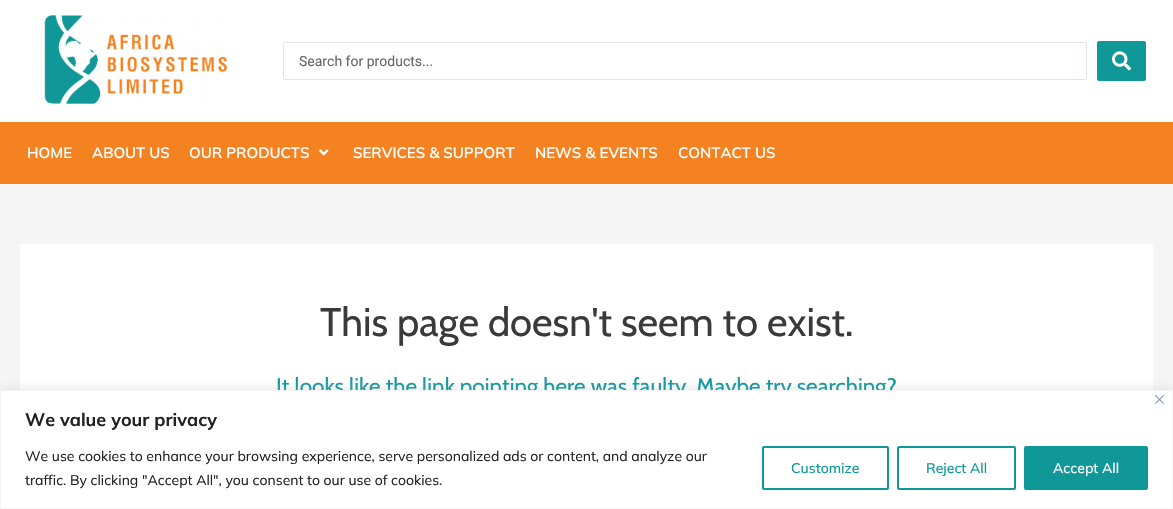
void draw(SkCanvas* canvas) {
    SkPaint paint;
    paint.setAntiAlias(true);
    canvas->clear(0xFFF5F5F5);
    paint.setColor(0xFFFFFFFF);
    canvas->drawRect(SkRect::MakeXYWH(0, 0, 1173, 122), paint);
    canvas->drawImageRect(SkImages::DeferredFromEncodedData(SkData::MakeFromFileName("img1.png")), SkRect::MakeXYWH(44, 15, 184, 89), SkSamplingOptions());
    paint.setStyle(SkPaint::kStroke_Style);
    paint.setStrokeWidth(1);
    paint.setColor(0xFFE1E5EB);
    canvas->drawRoundRect(SkRect::MakeXYWH(283.5f, 42.5f, 803, 37), 1.5f, 1.5f, paint);
    SkFont font1(fontMgr->matchFamilyStyle("Roboto", SkFontStyle::Normal()), 14);
    font1.setSubpixel(true);
    paint.setStyle(SkPaint::kFill_Style);
    paint.setColor(0xFF666666);
    canvas->drawString("Search for products...", 299, 66, font1, paint);
    paint.setColor(0xFF109899);
    canvas->drawRoundRect(SkRect::MakeXYWH(1097, 41, 49, 40), 2, 2, paint);
    canvas->drawImageRect(SkImages::DeferredFromEncodedData(SkData::MakeFromFileName("img2.png")), SkRect::MakeXYWH(1112, 51, 19, 20), SkSamplingOptions());
    paint.setColor(0xFFF58220);
    canvas->drawRect(SkRect::MakeXYWH(0, 122, 1173, 62), paint);
    SkFont font2(fontMgr->matchFamilyStyle("Mulish", SkFontStyle(600, SkFontStyle::kNormal_Width, SkFontStyle::kUpright_Slant)), 15);
    font2.setSubpixel(true);
    paint.setColor(0xFFFFFFFF);
    canvas->drawString("HOME", 27, 158, font2, paint);
    canvas->drawString("ABOUT US", 92, 158, font2, paint);
    canvas->drawString("OUR PRODUCTS", 189, 158, font2, paint);
    canvas->drawImageRect(SkImages::DeferredFromEncodedData(SkData::MakeFromFileName("img3.png")), SkRect::MakeXYWH(319, 149, 10, 7), SkSamplingOptions());
    canvas->drawString("SERVICES & SUPPORT", 353, 158, font2, paint);
    canvas->drawString("NEWS & EVENTS", 535, 158, font2, paint);
    canvas->drawString("CONTACT US", 678, 158, font2, paint);
    canvas->drawRect(SkRect::MakeXYWH(20, 244, 1133, 146), paint);
    SkFont font3(fontMgr->matchFamilyStyle("Cabin", SkFontStyle::Normal()), 40);
    font3.setSubpixel(true);
    paint.setColor(0xFF3A3A3A);
    canvas->drawString("This page doesn't seem to exist.", 320, 336, font3, paint);
    SkFont font4(fontMgr->matchFamilyStyle("Cabin", SkFontStyle::Normal()), 22.5f);
    font4.setSubpixel(true);
    paint.setColor(0xFF0F99A2);
    canvas->drawString("It looks like the link pointing here was faulty. Maybe try searching?", 276, 394, font4, paint);
    paint.setColor(0x4DACABAB);
    paint.setMaskFilter(SkMaskFilter::MakeBlur(kNormal_SkBlurStyle, 5));
    canvas->drawRect(SkRect::MakeXYWH(0, 389, 1173, 119), paint);
    paint.setMaskFilter(nullptr);
    paint.setColor(0xFFFFFFFF);
    canvas->drawRect(SkRect::MakeXYWH(0.5f, 390.5f, 1172, 118), paint);
    paint.setStyle(SkPaint::kStroke_Style);
    paint.setColor(0xFFF4F4F4);
    canvas->drawRect(SkRect::MakeXYWH(0.5f, 390.5f, 1172, 118), paint);
    canvas->drawImageRect(SkImages::DeferredFromEncodedData(SkData::MakeFromFileName("img4.png")), SkRect::MakeXYWH(1155, 395, 9, 9), SkSamplingOptions());
    SkFont font5(fontMgr->matchFamilyStyle("Mulish", SkFontStyle::Bold()), 18);
    font5.setSubpixel(true);
    paint.setStyle(SkPaint::kFill_Style);
    paint.setColor(0xFF212121);
    canvas->drawString("We value your privacy", 25, 426, font5, paint);
    SkFont font6(fontMgr->matchFamilyStyle("Mulish", SkFontStyle::Normal()), 14);
    font6.setSubpixel(true);
    canvas->drawString("We use cookies to enhance your browsing experience, serve personalized ads or content, and analyze our", 25, 461, font6, paint);
    canvas->drawString("traffic. By clicking \"Accept All\", you consent to our use of cookies.", 25, 485, font6, paint);
    paint.setStyle(SkPaint::kStroke_Style);
    paint.setStrokeWidth(2);
    paint.setColor(0xFF109899);
    canvas->drawRoundRect(SkRect::MakeXYWH(763, 447, 125, 42), 1, 1, paint);
    SkFont font7(fontMgr->matchFamilyStyle("Mulish", SkFontStyle(500, SkFontStyle::kNormal_Width, SkFontStyle::kUpright_Slant)), 14);
    font7.setSubpixel(true);
    paint.setStyle(SkPaint::kFill_Style);
    canvas->drawString("Customize", 791, 473, font7, paint);
    paint.setStyle(SkPaint::kStroke_Style);
    canvas->drawRoundRect(SkRect::MakeXYWH(898, 447, 117, 42), 1, 1, paint);
    paint.setStyle(SkPaint::kFill_Style);
    canvas->drawString("Reject All", 926, 473, font7, paint);
    canvas->drawRoundRect(SkRect::MakeXYWH(1025, 447, 122, 42), 1, 1, paint);
    paint.setStyle(SkPaint::kStroke_Style);
    canvas->drawRoundRect(SkRect::MakeXYWH(1025, 447, 122, 42), 1, 1, paint);
    paint.setStyle(SkPaint::kFill_Style);
    paint.setColor(0xFFFFFFFF);
    canvas->drawString("Accept All", 1053, 473, font7, paint);
}
